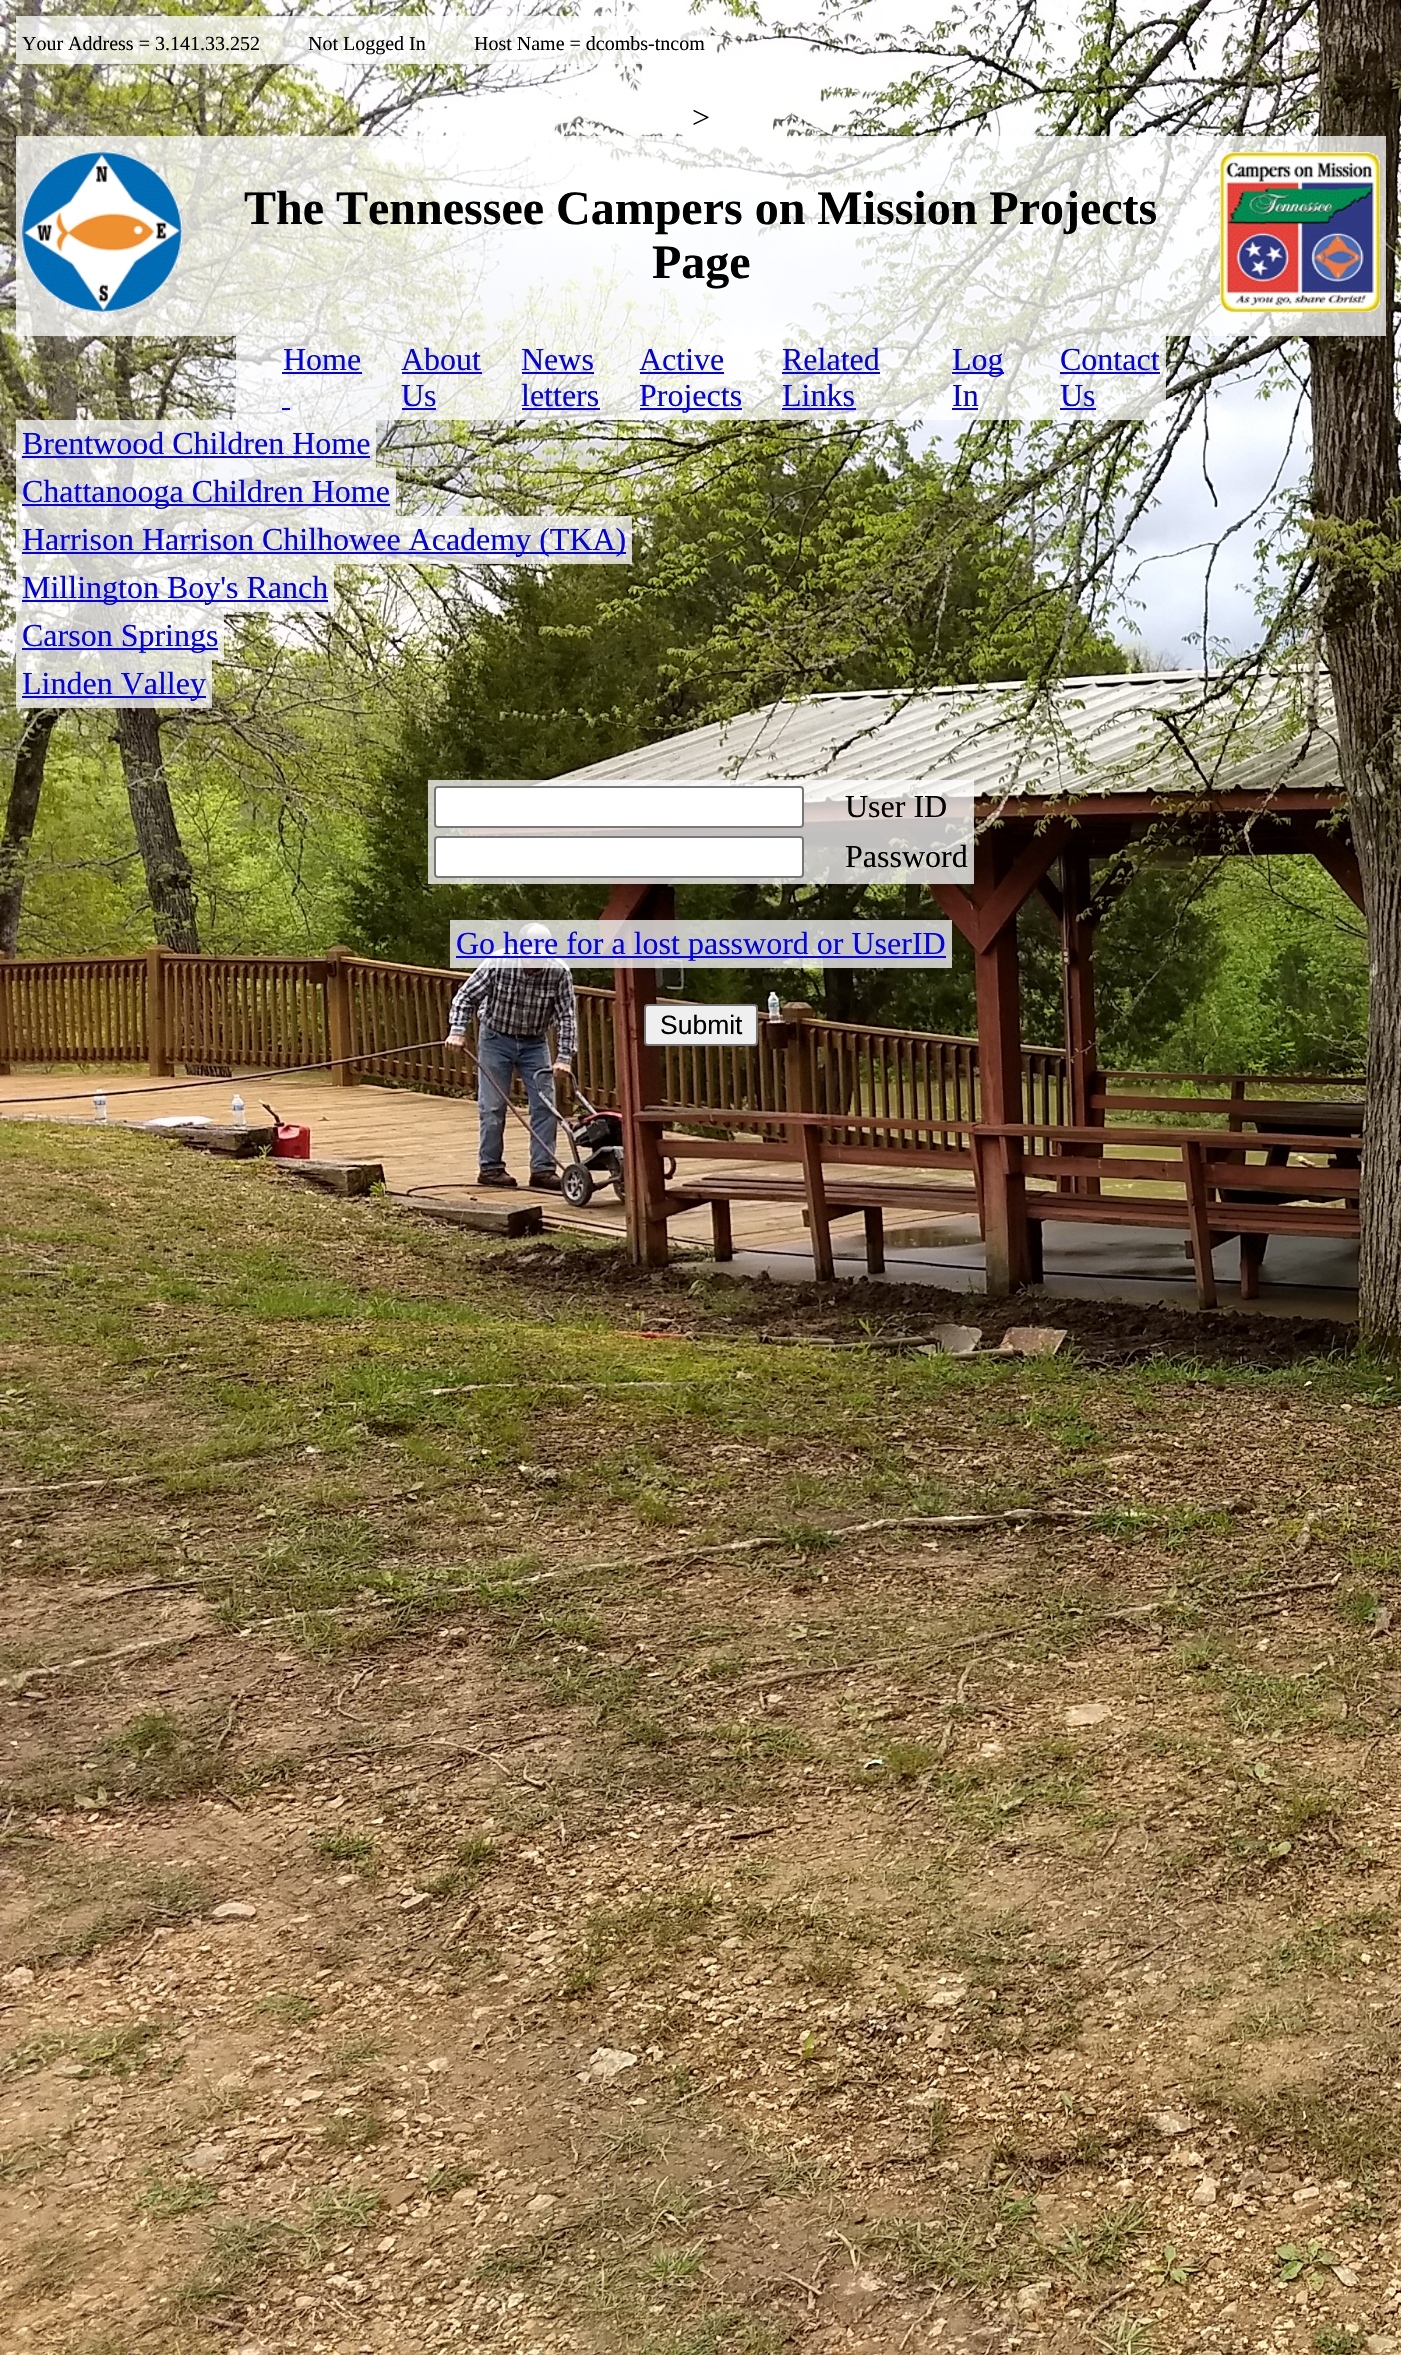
void draw(SkCanvas* canvas) {
    SkPaint paint;
    paint.setAntiAlias(true);
    canvas->clear(0xFFFFFFFF);
    canvas->drawImageRect(SkImages::DeferredFromEncodedData(SkData::MakeFromFileName("img1.png")), SkRect::MakeXYWH(0, 0, 1401, 2355), SkSamplingOptions());
    paint.setColor(0xBFFFFFFF);
    canvas->drawRect(SkRect::MakeXYWH(16, 16, 694, 48), paint);
    SkFont font1(fontMgr->matchFamilyStyle("Liberation Serif", SkFontStyle::Normal()), 20);
    font1.setSubpixel(true);
    paint.setColor(0xFF000000);
    canvas->drawString("Your Address = 3.141.33.252", 22, 50, font1, paint);
    canvas->drawString("Not Logged In", 308, 50, font1, paint);
    canvas->drawString("Host Name = dcombs-tncom", 474, 50, font1, paint);
    SkFont font2(fontMgr->matchFamilyStyle("Liberation Serif", SkFontStyle::Normal()), 32);
    font2.setSubpixel(true);
    canvas->drawString(">", 692, 128, font2, paint);
    paint.setColor(0xBFFFFFFF);
    canvas->drawRect(SkRect::MakeXYWH(16, 136, 1370, 200), paint);
    canvas->drawImageRect(SkImages::DeferredFromEncodedData(SkData::MakeFromFileName("img2.png")), SkRect::MakeXYWH(22, 152, 160, 160), SkSamplingOptions());
    SkFont font3(fontMgr->matchFamilyStyle("Liberation Serif", SkFontStyle::Bold()), 48);
    font3.setSubpixel(true);
    paint.setColor(0xFF000000);
    canvas->drawString("The Tennessee Campers on Mission Projects", 244, 224, font3, paint);
    canvas->drawString("Page", 652, 278, font3, paint);
    canvas->drawImageRect(SkImages::DeferredFromEncodedData(SkData::MakeFromFileName("img3.png")), SkRect::MakeXYWH(1220, 152, 160, 160), SkSamplingOptions());
    paint.setColor(0xBFFFFFFF);
    canvas->drawRect(SkRect::MakeXYWH(236, 336, 930, 84), paint);
    paint.setColor(0xFF0000EE);
    canvas->drawString("Home", 283, 370, font2, paint);
    canvas->drawRect(SkRect::MakeXYWH(282, 372, 80, 2), paint);
    canvas->drawRect(SkRect::MakeXYWH(282, 408, 8, 2), paint);
    canvas->drawString("About", 401, 370, font2, paint);
    canvas->drawRect(SkRect::MakeXYWH(402, 372, 80, 2), paint);
    canvas->drawString("Us", 401, 406, font2, paint);
    canvas->drawRect(SkRect::MakeXYWH(402, 408, 34, 2), paint);
    canvas->drawString("News", 521, 370, font2, paint);
    canvas->drawRect(SkRect::MakeXYWH(522, 372, 72, 2), paint);
    canvas->drawString("letters", 521, 406, font2, paint);
    canvas->drawRect(SkRect::MakeXYWH(522, 408, 78, 2), paint);
    canvas->drawString("Active", 639, 370, font2, paint);
    canvas->drawRect(SkRect::MakeXYWH(640, 372, 84, 2), paint);
    canvas->drawRect(SkRect::MakeXYWH(640, 408, 102, 2), paint);
    canvas->drawString("Projects", 639, 406, font2, paint);
    canvas->drawString("Related", 782, 370, font2, paint);
    canvas->drawRect(SkRect::MakeXYWH(782, 372, 98, 2), paint);
    canvas->drawString("Links", 782, 406, font2, paint);
    canvas->drawRect(SkRect::MakeXYWH(782, 408, 74, 2), paint);
    canvas->drawRect(SkRect::MakeXYWH(952, 372, 52, 2), paint);
    canvas->drawString("Log", 952, 370, font2, paint);
    canvas->drawString("In", 952, 406, font2, paint);
    canvas->drawRect(SkRect::MakeXYWH(952, 408, 26, 2), paint);
    canvas->drawString("Contact", 1060, 370, font2, paint);
    canvas->drawRect(SkRect::MakeXYWH(1060, 372, 100, 2), paint);
    canvas->drawString("Us", 1060, 406, font2, paint);
    canvas->drawRect(SkRect::MakeXYWH(1060, 408, 36, 2), paint);
    paint.setColor(0xBFFFFFFF);
    canvas->drawRect(SkRect::MakeXYWH(16, 420, 360, 48), paint);
    paint.setColor(0xFF0000EE);
    canvas->drawString("Brentwood Children Home", 22, 454, font2, paint);
    canvas->drawRect(SkRect::MakeXYWH(22, 456, 348, 2), paint);
    paint.setColor(0xBFFFFFFF);
    canvas->drawRect(SkRect::MakeXYWH(16, 468, 380, 48), paint);
    paint.setColor(0xFF0000EE);
    canvas->drawRect(SkRect::MakeXYWH(22, 504, 368, 2), paint);
    canvas->drawString("Chattanooga Children Home", 22, 502, font2, paint);
    paint.setColor(0xBFFFFFFF);
    canvas->drawRect(SkRect::MakeXYWH(16, 516, 616, 48), paint);
    paint.setColor(0xFF0000EE);
    canvas->drawRect(SkRect::MakeXYWH(22, 552, 604, 2), paint);
    canvas->drawString("Harrison Harrison Chilhowee Academy (TKA)", 22, 550, font2, paint);
    paint.setColor(0xBFFFFFFF);
    canvas->drawRect(SkRect::MakeXYWH(16, 564, 318, 48), paint);
    paint.setColor(0xFF0000EE);
    canvas->drawRect(SkRect::MakeXYWH(22, 600, 306, 2), paint);
    canvas->drawString("Millington Boy's Ranch", 22, 598, font2, paint);
    paint.setColor(0xBFFFFFFF);
    canvas->drawRect(SkRect::MakeXYWH(16, 612, 208, 48), paint);
    paint.setColor(0xFF0000EE);
    canvas->drawRect(SkRect::MakeXYWH(22, 648, 196, 2), paint);
    canvas->drawString("Carson Springs", 22, 646, font2, paint);
    paint.setColor(0xBFFFFFFF);
    canvas->drawRect(SkRect::MakeXYWH(16, 660, 196, 48), paint);
    paint.setColor(0xFF0000EE);
    canvas->drawRect(SkRect::MakeXYWH(22, 696, 184, 2), paint);
    canvas->drawString("Linden Valley", 22, 694, font2, paint);
    paint.setColor(0xBFFFFFFF);
    canvas->drawRect(SkRect::MakeXYWH(428, 780, 546, 104), paint);
    paint.setColor(0xFFFFFFFF);
    canvas->drawRoundRect(SkRect::MakeXYWH(435, 787, 368, 40), 3, 3, paint);
    paint.setStyle(SkPaint::kStroke_Style);
    paint.setStrokeWidth(2);
    paint.setColor(0xFF767676);
    canvas->drawRoundRect(SkRect::MakeXYWH(435, 787, 368, 40), 3, 3, paint);
    paint.setStyle(SkPaint::kFill_Style);
    paint.setColor(0xFF000000);
    canvas->drawString("User ID", 845, 817, font2, paint);
    paint.setColor(0xFFFFFFFF);
    canvas->drawRoundRect(SkRect::MakeXYWH(435, 837, 368, 40), 3, 3, paint);
    paint.setStyle(SkPaint::kStroke_Style);
    paint.setColor(0xFF767676);
    canvas->drawRoundRect(SkRect::MakeXYWH(435, 837, 368, 40), 3, 3, paint);
    paint.setStyle(SkPaint::kFill_Style);
    paint.setColor(0xFF000000);
    canvas->drawString("Password", 845, 867, font2, paint);
    paint.setColor(0xBFFFFFFF);
    canvas->drawRect(SkRect::MakeXYWH(450, 920, 502, 48), paint);
    paint.setColor(0xFF0000EE);
    canvas->drawRect(SkRect::MakeXYWH(456, 956, 490, 2), paint);
    canvas->drawString("Go here for a lost password or UserID", 456, 954, font2, paint);
    paint.setColor(0xFFEFEFEF);
    canvas->drawRoundRect(SkRect::MakeXYWH(645, 1005, 112, 40), 3, 3, paint);
    paint.setStyle(SkPaint::kStroke_Style);
    paint.setColor(0xFF767676);
    canvas->drawRoundRect(SkRect::MakeXYWH(645, 1005, 112, 40), 3, 3, paint);
    SkFont font4(fontMgr->matchFamilyStyle("Liberation Sans", SkFontStyle::Normal()), 26.5f);
    font4.setSubpixel(true);
    paint.setStyle(SkPaint::kFill_Style);
    paint.setColor(0xFF000000);
    canvas->drawString("Submit", 660, 1034, font4, paint);
}
